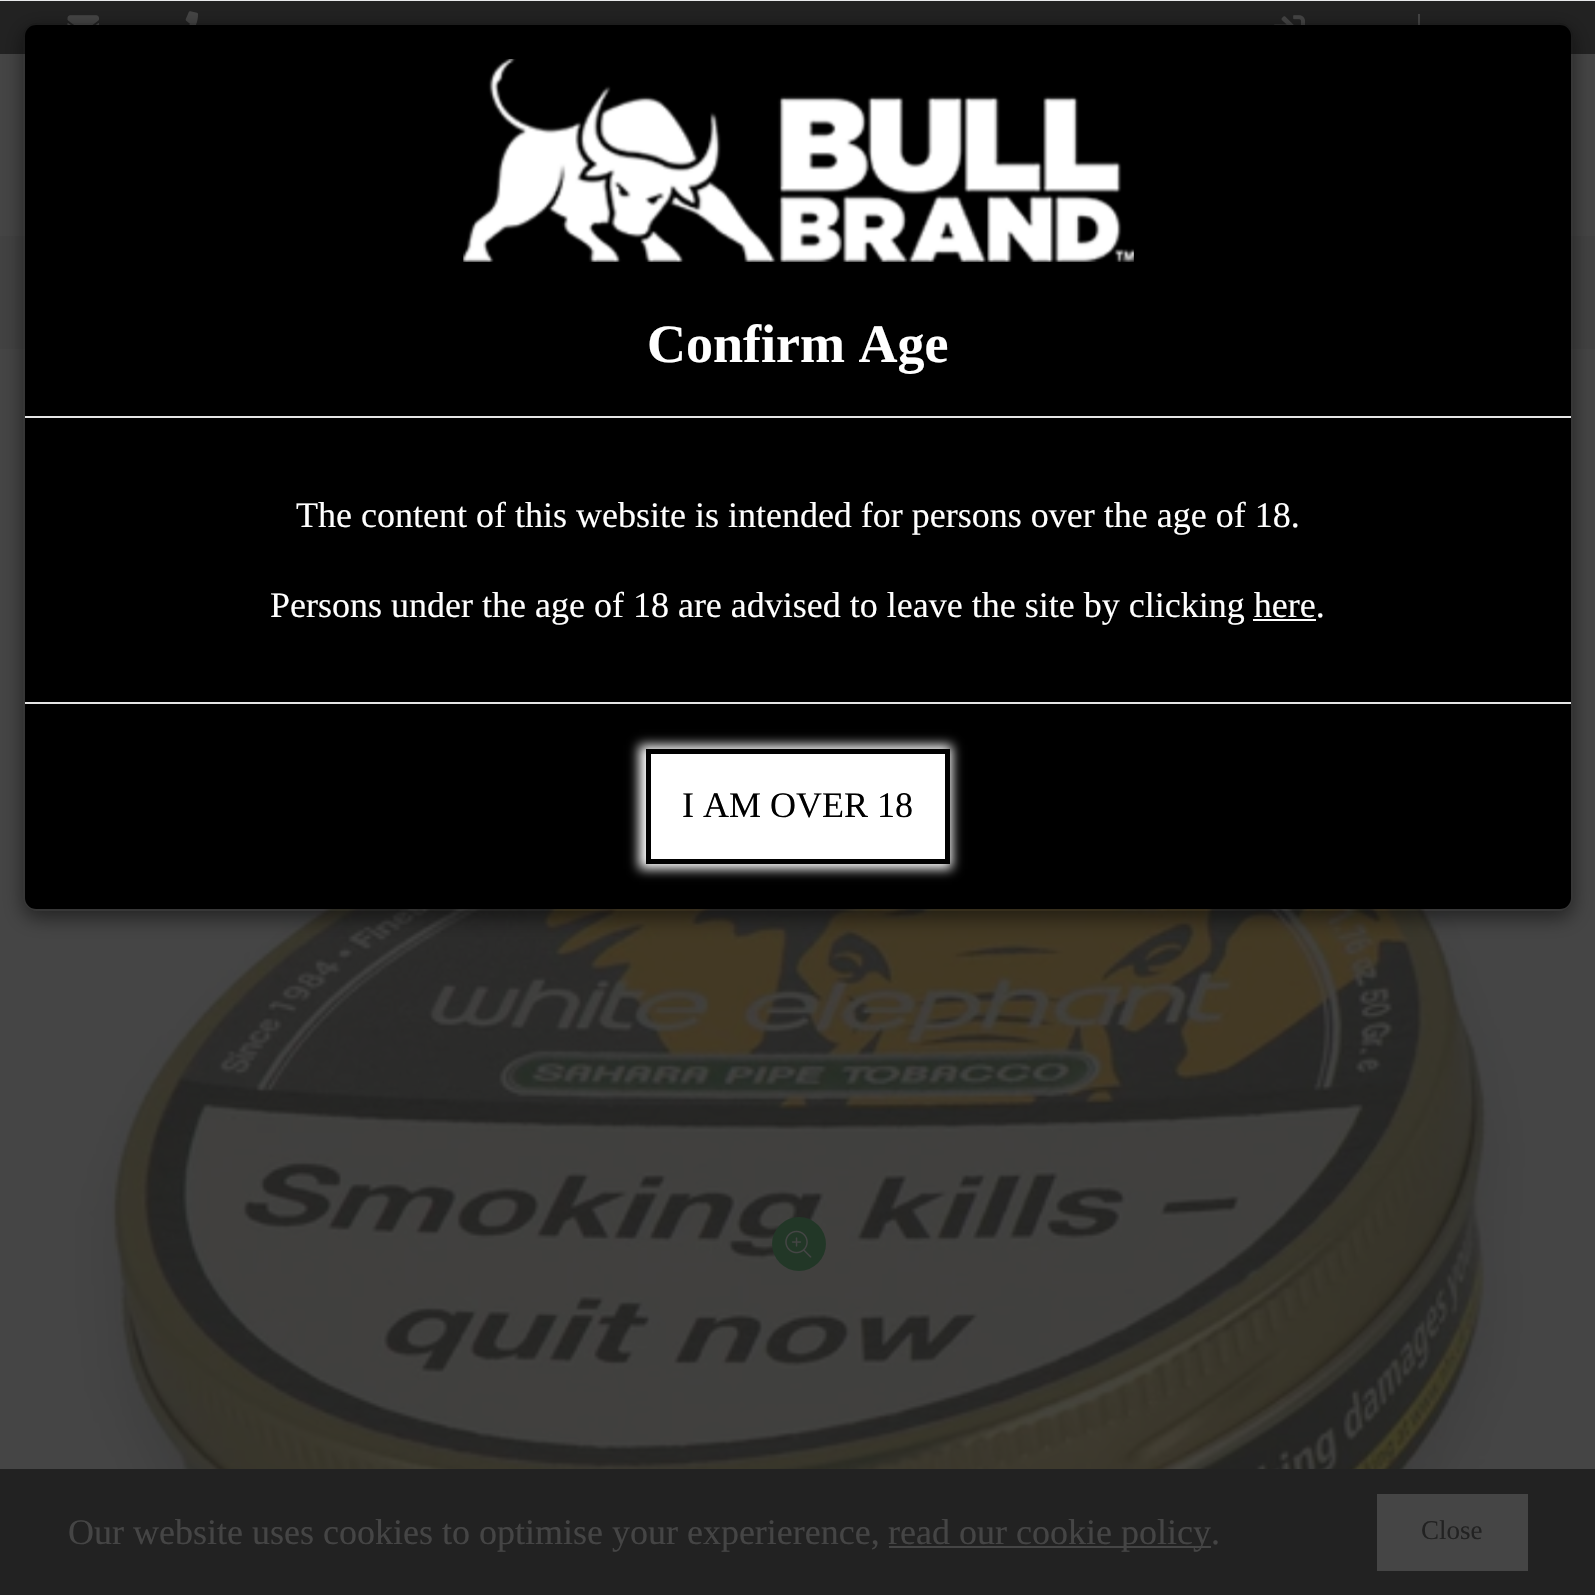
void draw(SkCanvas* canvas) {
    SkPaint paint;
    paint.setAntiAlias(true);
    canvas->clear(0xFF454545);
    paint.setColor(0xFF222222);
    canvas->drawRect(SkRect::MakeXYWH(0, 1, 1595, 53), paint);
    canvas->drawImageRect(SkImages::DeferredFromEncodedData(SkData::MakeFromFileName("img1.png")), SkRect::MakeXYWH(67, 15, 32, 10), SkSamplingOptions());
    canvas->drawImageRect(SkImages::DeferredFromEncodedData(SkData::MakeFromFileName("img2.png")), SkRect::MakeXYWH(185, 11, 13, 14), SkSamplingOptions());
    canvas->drawImageRect(SkImages::DeferredFromEncodedData(SkData::MakeFromFileName("img3.png")), SkRect::MakeXYWH(1274, 15, 31, 10), SkSamplingOptions());
    paint.setColor(0xFF454545);
    canvas->drawRect(SkRect::MakeXYWH(1418, 14, 2, 11), paint);
    paint.setColor(0xFF424242);
    canvas->drawRect(SkRect::MakeXYWH(0, 236, 1595, 113), paint);
    canvas->drawImageRect(SkImages::DeferredFromEncodedData(SkData::MakeFromFileName("img5.png")), SkRect::MakeXYWH(74, 909, 1451, 560), SkSamplingOptions());
    canvas->save();
    canvas->clipPath(SkPathBuilder(SkPathFillType::kEvenOdd).moveTo(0, 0).lineTo(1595, 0).lineTo(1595, 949).lineTo(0, 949).close().moveTo(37, 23).lineTo(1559, 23).cubicTo(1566.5f, 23, 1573, 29.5f, 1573, 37).lineTo(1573, 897).cubicTo(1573, 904.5f, 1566.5f, 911, 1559, 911).lineTo(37, 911).cubicTo(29.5f, 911, 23, 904.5f, 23, 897).lineTo(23, 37).cubicTo(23, 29.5f, 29.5f, 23, 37, 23).close().detach(), true);
    paint.setColor(0x80000000);
    paint.setMaskFilter(SkMaskFilter::MakeBlur(kNormal_SkBlurStyle, 10));
    canvas->drawRoundRect(SkRect::MakeXYWH(23, 29, 1550, 889), 14, 14, paint);
    paint.setMaskFilter(nullptr);
    canvas->restore();
    paint.setColor(0xFFE8E9EB);
    canvas->drawRect(SkRect::MakeXYWH(0, 0, 1595, 1), paint);
    paint.setColor(0xFF000000);
    canvas->drawRoundRect(SkRect::MakeXYWH(25, 25, 1546, 884), 11, 11, paint);
    paint.setStyle(SkPaint::kStroke_Style);
    paint.setStrokeWidth(2);
    paint.setColor(0x33000000);
    canvas->drawRoundRect(SkRect::MakeXYWH(24, 24, 1548, 886), 13, 13, paint);
    paint.setStyle(SkPaint::kFill_Style);
    paint.setColor(0xFFE5E5E5);
    canvas->drawRect(SkRect::MakeXYWH(25, 416, 1546, 2), paint);
    canvas->drawImageRect(SkImages::DeferredFromEncodedData(SkData::MakeFromFileName("img4.png")), SkRect::MakeXYWH(463, 59, 671, 203), SkSamplingOptions());
    SkFont font1(fontMgr->matchFamilyStyle("Liberation Serif", SkFontStyle::Bold()), 54);
    font1.setSubpixel(true);
    paint.setColor(0xFFFFFFFF);
    canvas->drawString("Confirm Age", 647, 362, font1, paint);
    SkFont font2(fontMgr->matchFamilyStyle("Liberation Serif", SkFontStyle::Normal()), 36);
    font2.setSubpixel(true);
    canvas->drawString("The content of this website is intended for persons over the age of 18.", 296, 527, font2, paint);
    canvas->drawString("Persons under the age of 18 are advised to leave the site by clicking here.", 270, 617, font2, paint);
    canvas->drawRect(SkRect::MakeXYWH(1253, 619, 63, 2), paint);
    paint.setColor(0xFFE5E5E5);
    canvas->drawRect(SkRect::MakeXYWH(25, 702, 1546, 2), paint);
    paint.setColor(0xFFFFFFFF);
    paint.setMaskFilter(SkMaskFilter::MakeBlur(kNormal_SkBlurStyle, 5.5f));
    canvas->drawRect(SkRect::MakeXYWH(639, 745, 313, 124), paint);
    paint.setMaskFilter(nullptr);
    canvas->drawRect(SkRect::MakeXYWH(648.5f, 751.5f, 299, 110), paint);
    paint.setStyle(SkPaint::kStroke_Style);
    paint.setStrokeWidth(5);
    paint.setColor(0xFF000000);
    canvas->drawRect(SkRect::MakeXYWH(648.5f, 751.5f, 299, 110), paint);
    paint.setStyle(SkPaint::kFill_Style);
    canvas->drawString("I AM OVER 18", 682, 817, font2, paint);
    paint.setColor(0xFF223727);
    canvas->drawCircle(799, 1244, 27, paint);
    canvas->drawImageRect(SkImages::DeferredFromEncodedData(SkData::MakeFromFileName("img6.png")), SkRect::MakeXYWH(785, 1230, 27, 28), SkSamplingOptions());
    paint.setColor(0xFF222222);
    canvas->drawRect(SkRect::MakeXYWH(0, 1469, 1595, 126), paint);
    paint.setColor(0xFF454545);
    canvas->drawString("Our website uses cookies to optimise your experierence,", 68, 1544, font2, paint);
    canvas->drawRect(SkRect::MakeXYWH(889, 1546, 322, 2), paint);
    canvas->drawString("read our cookie policy.", 888, 1544, font2, paint);
    canvas->drawRect(SkRect::MakeXYWH(1377, 1494, 151, 77), paint);
    SkFont font3(fontMgr->matchFamilyStyle("Liberation Serif", SkFontStyle::Normal()), 27);
    font3.setSubpixel(true);
    paint.setColor(0xFF222222);
    canvas->drawString("Close", 1421, 1539, font3, paint);
}
